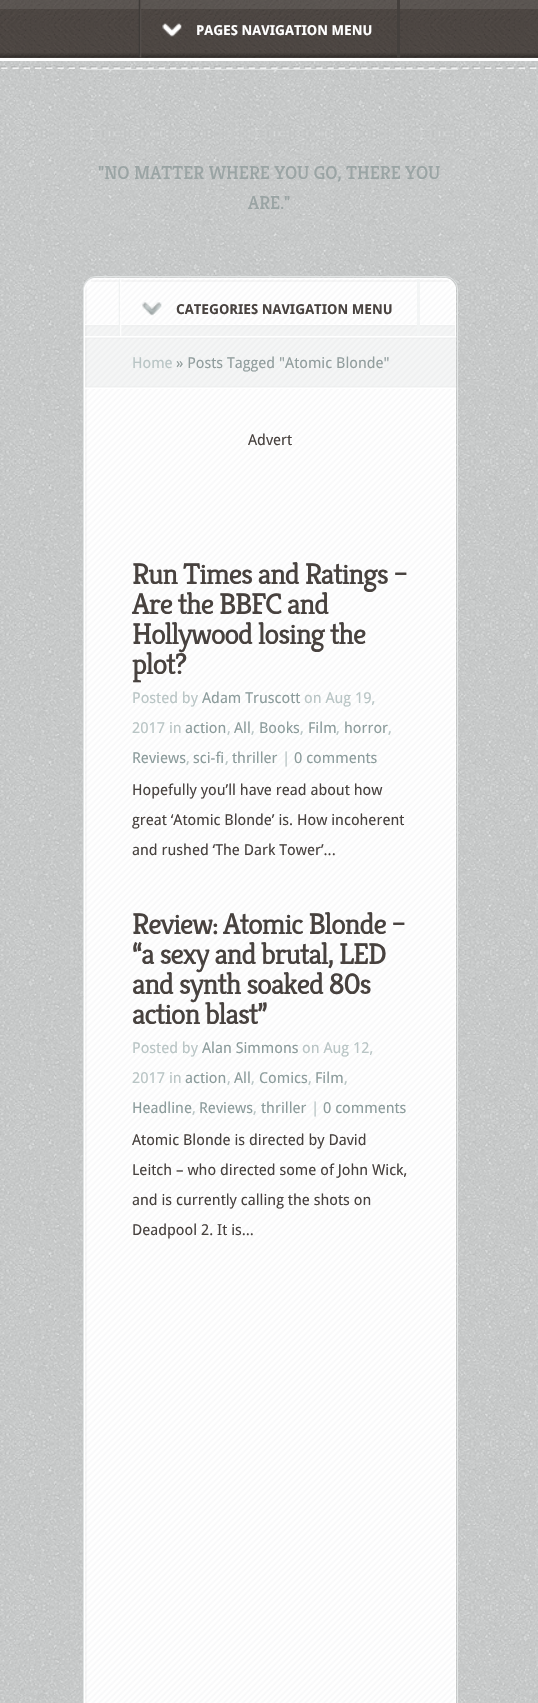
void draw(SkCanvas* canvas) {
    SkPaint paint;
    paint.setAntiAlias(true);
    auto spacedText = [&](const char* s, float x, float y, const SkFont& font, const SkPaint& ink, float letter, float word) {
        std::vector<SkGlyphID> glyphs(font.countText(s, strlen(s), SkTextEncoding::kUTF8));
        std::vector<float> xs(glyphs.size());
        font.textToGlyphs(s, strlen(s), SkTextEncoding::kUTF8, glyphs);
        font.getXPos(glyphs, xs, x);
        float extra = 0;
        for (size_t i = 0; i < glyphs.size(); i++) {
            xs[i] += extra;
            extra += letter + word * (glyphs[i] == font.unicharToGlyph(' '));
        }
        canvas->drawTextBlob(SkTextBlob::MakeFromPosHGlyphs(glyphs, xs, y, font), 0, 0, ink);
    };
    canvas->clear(0xFFFFFFFF);
    canvas->drawImageRect(SkImages::DeferredFromEncodedData(SkData::MakeFromFileName("img1.png")), SkRect::MakeXYWH(0, 0, 538, 58), SkSamplingOptions());
    paint.setColor(0x14FFFFFF);
    canvas->drawRect(SkRect::MakeXYWH(0, 0, 538, 9), paint);
    canvas->drawImageRect(SkImages::DeferredFromEncodedData(SkData::MakeFromFileName("img4.png")), SkRect::MakeXYWH(0, 53, 538, 5), SkSamplingOptions());
    canvas->drawImageRect(SkImages::DeferredFromEncodedData(SkData::MakeFromFileName("img2.png")), SkRect::MakeXYWH(138, 0, 4, 58), SkSamplingOptions());
    canvas->drawImageRect(SkImages::DeferredFromEncodedData(SkData::MakeFromFileName("img3.png")), SkRect::MakeXYWH(162, 23, 20, 14), SkSamplingOptions());
    SkFont font1(fontMgr->matchFamilyStyle("Droid Sans", SkFontStyle::Bold()), 13.75f);
    font1.setSubpixel(true);
    paint.setColor(0xFFFFFFFF);
    canvas->drawString("PAGES NAVIGATION MENU", 196, 35, font1, paint);
    paint.setColor(0xFF44403D);
    canvas->drawRect(SkRect::MakeXYWH(397, 0, 3, 58), paint);
    paint.setColor(0xFFFAFCFC);
    canvas->drawRect(SkRect::MakeXYWH(0, 61, 538, 1642), paint);
    canvas->drawImageRect(SkImages::DeferredFromEncodedData(SkData::MakeFromFileName("img5.png")), SkRect::MakeXYWH(0, 61, 538, 1642), SkSamplingOptions());
    canvas->drawImageRect(SkImages::DeferredFromEncodedData(SkData::MakeFromFileName("img6.png")), SkRect::MakeXYWH(0, 66, 537, 3), SkSamplingOptions());
    SkFont font2(fontMgr->matchFamilyStyle("Kreon", SkFontStyle::Normal()), 18.75f);
    font2.setSubpixel(true);
    paint.setColor(0xFF9AA4A4);
    canvas->drawString("\"NO MATTER WHERE YOU GO, THERE YOU", 98, 179, font2, paint);
    canvas->drawString("ARE.\"", 248, 209, font2, paint);
    paint.setStyle(SkPaint::kStroke_Style);
    paint.setStrokeWidth(1);
    paint.setColor(0xFFE2E5E5);
    canvas->drawRoundRect(SkRect::MakeXYWH(83.5f, 276.5f, 374, 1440), 12.5f, 12.5f, paint);
    canvas->drawImageRect(SkImages::DeferredFromEncodedData(SkData::MakeFromFileName("img7.png")), SkRect::MakeXYWH(84, 277, 372, 1426), SkSamplingOptions());
    paint.setColor(0xFFFFFFFF);
    canvas->drawRoundRect(SkRect::MakeXYWH(84.5f, 278.5f, 371, 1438), 12.5f, 12.5f, paint);
    canvas->drawImageRect(SkImages::DeferredFromEncodedData(SkData::MakeFromFileName("img8.png")), SkRect::MakeXYWH(85, 286, 2, 1417), SkSamplingOptions());
    paint.setStyle(SkPaint::kFill_Style);
    paint.setColor(0x08000000);
    canvas->drawRect(SkRect::MakeXYWH(91, 280, 358, 2), paint);
    paint.setColor(0xFFDEE0E0);
    canvas->drawRect(SkRect::MakeXYWH(83, 69, 375, 1), paint);
    canvas->drawImageRect(SkImages::DeferredFromEncodedData(SkData::MakeFromFileName("img9.png")), SkRect::MakeXYWH(85, 324, 370, 12), SkSamplingOptions());
    canvas->drawImageRect(SkImages::DeferredFromEncodedData(SkData::MakeFromFileName("img10.png")), SkRect::MakeXYWH(118, 278, 4, 58), SkSamplingOptions());
    canvas->drawImageRect(SkImages::DeferredFromEncodedData(SkData::MakeFromFileName("img11.png")), SkRect::MakeXYWH(142, 302, 20, 14), SkSamplingOptions());
    paint.setColor(0xFF48423F);
    canvas->drawString("CATEGORIES NAVIGATION MENU", 176, 314, font1, paint);
    paint.setColor(0xFFF3F5F5);
    canvas->drawRect(SkRect::MakeXYWH(417, 279, 3, 57), paint);
    canvas->drawImageRect(SkImages::DeferredFromEncodedData(SkData::MakeFromFileName("img12.png")), SkRect::MakeXYWH(85, 336, 372, 53), SkSamplingOptions());
    SkFont font3(fontMgr->matchFamilyStyle("Droid Sans", SkFontStyle::Normal()), 15);
    font3.setSubpixel(true);
    paint.setColor(0xFFB9C5C5);
    canvas->drawString("Home", 132, 368, font3, paint);
    paint.setColor(0xFF929E9E);
    canvas->drawString("» Posts Tagged \"Atomic Blonde\"", 176, 368, font3, paint);
    paint.setColor(0xFF48423F);
    canvas->drawString("Advert", 248, 445, font3, paint);
    SkFont font4(fontMgr->matchFamilyStyle("Kreon", SkFontStyle::Normal()), 30);
    font4.setSubpixel(true);
    spacedText("Run Times and Ratings –", 132, 584, font4, paint, -1.25f, 0);
    spacedText("Are the BBFC and", 132, 614, font4, paint, -1.25f, 0);
    spacedText("Hollywood losing the", 132, 644, font4, paint, -1.25f, 0);
    spacedText("plot?", 132, 674, font4, paint, -1.25f, 0);
    paint.setColor(0xFFB9C5C5);
    canvas->drawString("Posted by", 132, 703, font3, paint);
    paint.setColor(0xFF8C9C9C);
    canvas->drawString("Adam Truscott", 202, 703, font3, paint);
    paint.setColor(0xFFB9C5C5);
    canvas->drawString("on Aug 19,", 304, 703, font3, paint);
    canvas->drawString("2017 in", 132, 733, font3, paint);
    paint.setColor(0xFF8C9C9C);
    canvas->drawString("action", 185, 733, font3, paint);
    paint.setColor(0xFFB9C5C5);
    canvas->drawString(",", 227, 733, font3, paint);
    paint.setColor(0xFF8C9C9C);
    canvas->drawString("All", 234, 733, font3, paint);
    paint.setColor(0xFFB9C5C5);
    canvas->drawString(",", 251, 733, font3, paint);
    paint.setColor(0xFF8C9C9C);
    canvas->drawString("Books", 259, 733, font3, paint);
    paint.setColor(0xFFB9C5C5);
    canvas->drawString(",", 300, 733, font3, paint);
    paint.setColor(0xFF8C9C9C);
    canvas->drawString("Film", 308, 733, font3, paint);
    paint.setColor(0xFFB9C5C5);
    canvas->drawString(",", 336, 733, font3, paint);
    paint.setColor(0xFF8C9C9C);
    canvas->drawString("horror", 344, 733, font3, paint);
    paint.setColor(0xFFB9C5C5);
    canvas->drawString(",", 388, 733, font3, paint);
    paint.setColor(0xFF8C9C9C);
    canvas->drawString("Reviews", 132, 763, font3, paint);
    paint.setColor(0xFFB9C5C5);
    canvas->drawString(",", 186, 763, font3, paint);
    paint.setColor(0xFF8C9C9C);
    canvas->drawString("sci-fi", 193, 763, font3, paint);
    paint.setColor(0xFFB9C5C5);
    canvas->drawString(",", 225, 763, font3, paint);
    paint.setColor(0xFF8C9C9C);
    canvas->drawString("thriller", 232, 763, font3, paint);
    paint.setColor(0xFFB9C5C5);
    canvas->drawString("|", 282, 763, font3, paint);
    paint.setColor(0xFF8C9C9C);
    canvas->drawString("0 comments", 294, 763, font3, paint);
    paint.setColor(0xFF48423F);
    canvas->drawString("Hopefully you’ll have read about how", 132, 795, font3, paint);
    canvas->drawString("great ‘Atomic Blonde’ is. How incoherent", 132, 825, font3, paint);
    canvas->drawString("and rushed ‘The Dark Tower’...", 132, 855, font3, paint);
    spacedText("Review: Atomic Blonde –", 132, 934, font4, paint, -1.25f, 0);
    spacedText("“a sexy and brutal, LED", 132, 964, font4, paint, -1.25f, 0);
    spacedText("and synth soaked 80s", 132, 994, font4, paint, -1.25f, 0);
    spacedText("action blast”", 132, 1024, font4, paint, -1.25f, 0);
    paint.setColor(0xFFB9C5C5);
    canvas->drawString("Posted by", 132, 1053, font3, paint);
    paint.setColor(0xFF8C9C9C);
    canvas->drawString("Alan Simmons", 202, 1053, font3, paint);
    paint.setColor(0xFFB9C5C5);
    canvas->drawString("on Aug 12,", 302, 1053, font3, paint);
    canvas->drawString("2017 in", 132, 1083, font3, paint);
    paint.setColor(0xFF8C9C9C);
    canvas->drawString("action", 185, 1083, font3, paint);
    paint.setColor(0xFFB9C5C5);
    canvas->drawString(",", 227, 1083, font3, paint);
    paint.setColor(0xFF8C9C9C);
    canvas->drawString("All", 234, 1083, font3, paint);
    paint.setColor(0xFFB9C5C5);
    canvas->drawString(",", 251, 1083, font3, paint);
    paint.setColor(0xFF8C9C9C);
    canvas->drawString("Comics", 259, 1083, font3, paint);
    paint.setColor(0xFFB9C5C5);
    canvas->drawString(",", 308, 1083, font3, paint);
    paint.setColor(0xFF8C9C9C);
    canvas->drawString("Film", 315, 1083, font3, paint);
    paint.setColor(0xFFB9C5C5);
    canvas->drawString(",", 344, 1083, font3, paint);
    paint.setColor(0xFF8C9C9C);
    canvas->drawString("Headline", 132, 1113, font3, paint);
    paint.setColor(0xFFB9C5C5);
    canvas->drawString(",", 192, 1113, font3, paint);
    paint.setColor(0xFF8C9C9C);
    canvas->drawString("Reviews", 199, 1113, font3, paint);
    paint.setColor(0xFFB9C5C5);
    canvas->drawString(",", 253, 1113, font3, paint);
    paint.setColor(0xFF8C9C9C);
    canvas->drawString("thriller", 261, 1113, font3, paint);
    paint.setColor(0xFFB9C5C5);
    canvas->drawString("|", 311, 1113, font3, paint);
    paint.setColor(0xFF8C9C9C);
    canvas->drawString("0 comments", 323, 1113, font3, paint);
    paint.setColor(0xFF48423F);
    canvas->drawString("Atomic Blonde is directed by David", 132, 1145, font3, paint);
    canvas->drawString("Leitch – who directed some of John Wick,", 132, 1175, font3, paint);
    canvas->drawString("and is currently calling the shots on", 132, 1205, font3, paint);
    canvas->drawString("Deadpool 2. It is...", 132, 1235, font3, paint);
}
